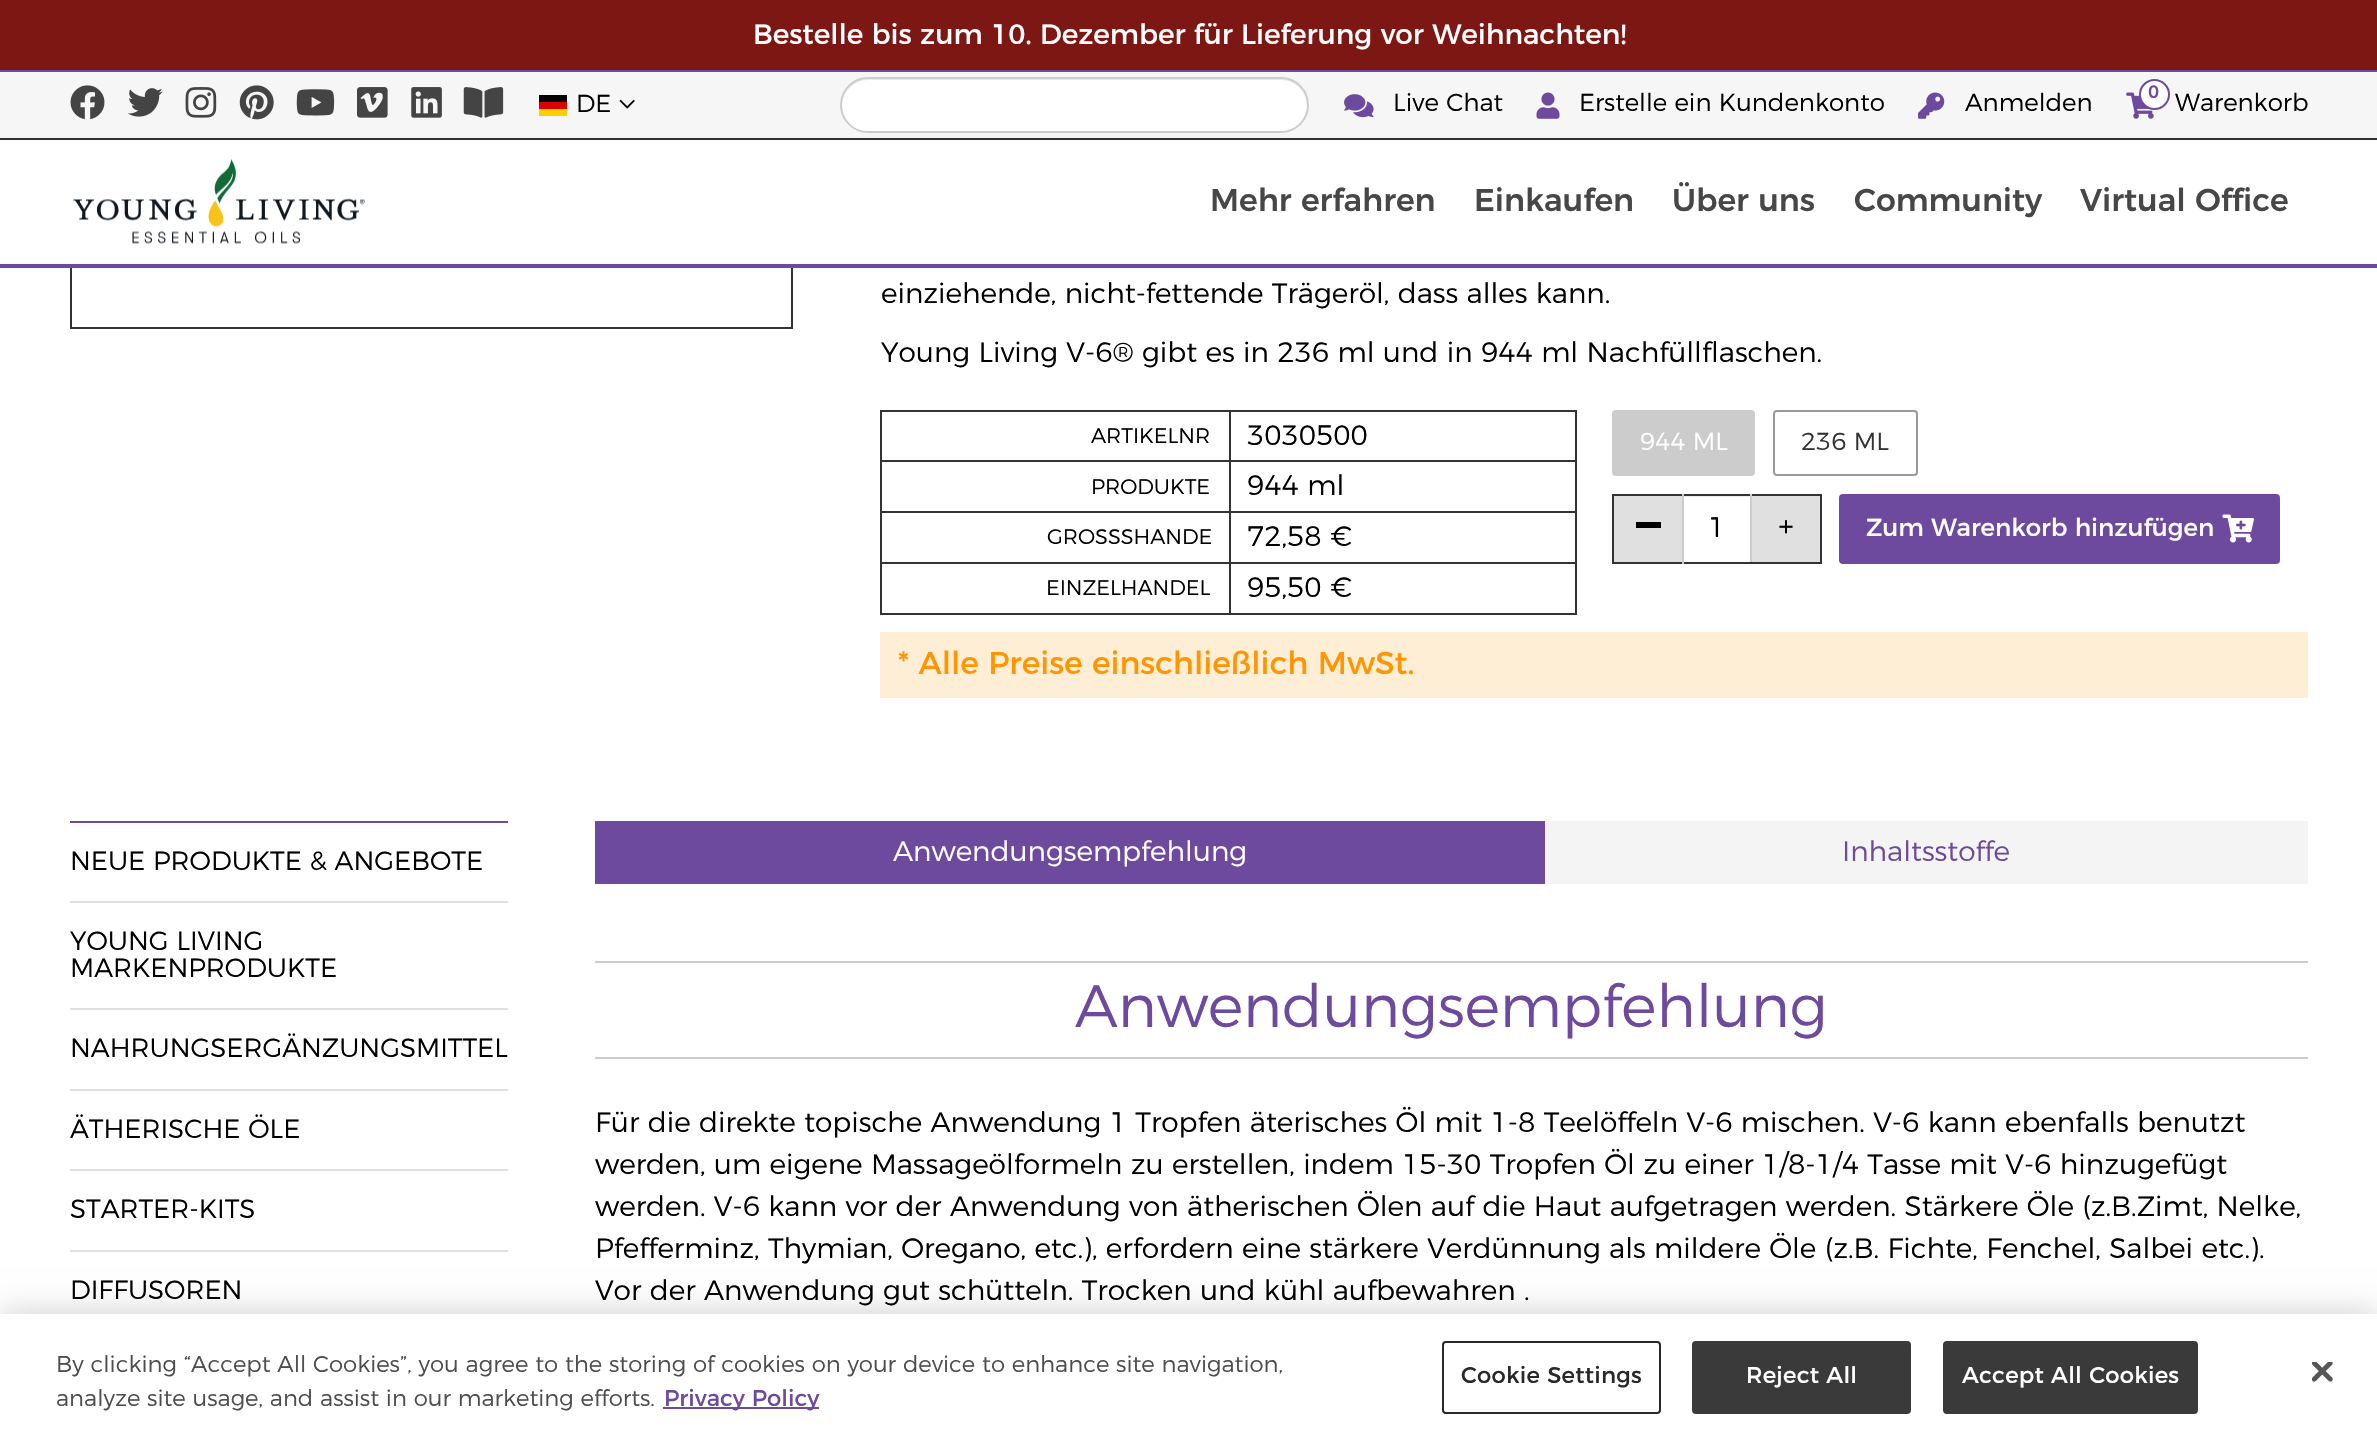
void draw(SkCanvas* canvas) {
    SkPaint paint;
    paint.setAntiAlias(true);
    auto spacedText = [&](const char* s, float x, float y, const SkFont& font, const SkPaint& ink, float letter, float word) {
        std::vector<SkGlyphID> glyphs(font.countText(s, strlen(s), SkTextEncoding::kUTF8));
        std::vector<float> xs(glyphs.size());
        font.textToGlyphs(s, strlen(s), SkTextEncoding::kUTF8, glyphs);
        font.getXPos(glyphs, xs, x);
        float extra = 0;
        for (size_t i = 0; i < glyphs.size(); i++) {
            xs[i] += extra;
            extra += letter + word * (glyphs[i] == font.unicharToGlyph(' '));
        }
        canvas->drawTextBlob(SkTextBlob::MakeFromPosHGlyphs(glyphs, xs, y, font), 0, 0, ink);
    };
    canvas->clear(0xFFFFFFFF);
    paint.setStyle(SkPaint::kStroke_Style);
    paint.setStrokeWidth(2);
    paint.setColor(0xFF333333);
    canvas->drawRect(SkRect::MakeXYWH(71, -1, 721, 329), paint);
    paint.setStyle(SkPaint::kFill_Style);
    paint.setColor(0xFF6E4A9E);
    canvas->drawRect(SkRect::MakeXYWH(0, 264, 2377, 4), paint);
    paint.setColor(0xFF7C1714);
    canvas->drawRect(SkRect::MakeXYWH(0, 0, 2377, 70), paint);
    SkFont font1(fontMgr->matchFamilyStyle("Montserrat", SkFontStyle::Normal()), 28);
    font1.setSubpixel(true);
    paint.setColor(0xFFFFFFFF);
    canvas->drawString("Bestelle bis zum 10. Dezember für Lieferung vor Weihnachten!", 753, 44, font1, paint);
    paint.setColor(0xFFF6F6F6);
    canvas->drawRect(SkRect::MakeXYWH(0, 72, 2377, 66), paint);
    paint.setColor(0xFF6E4A9E);
    canvas->drawRect(SkRect::MakeXYWH(0, 70, 2377, 2), paint);
    paint.setColor(0xFF333333);
    canvas->drawRect(SkRect::MakeXYWH(0, 138, 2377, 2), paint);
    canvas->drawImageRect(SkImages::DeferredFromEncodedData(SkData::MakeFromFileName("img1.png")), SkRect::MakeXYWH(70, 85, 35, 35), SkSamplingOptions());
    canvas->drawImageRect(SkImages::DeferredFromEncodedData(SkData::MakeFromFileName("img2.png")), SkRect::MakeXYWH(128, 88, 35, 29), SkSamplingOptions());
    canvas->drawImageRect(SkImages::DeferredFromEncodedData(SkData::MakeFromFileName("img3.png")), SkRect::MakeXYWH(185, 87, 32, 31), SkSamplingOptions());
    canvas->drawImageRect(SkImages::DeferredFromEncodedData(SkData::MakeFromFileName("img4.png")), SkRect::MakeXYWH(239, 85, 35, 35), SkSamplingOptions());
    canvas->drawImageRect(SkImages::DeferredFromEncodedData(SkData::MakeFromFileName("img5.png")), SkRect::MakeXYWH(296, 89, 39, 27), SkSamplingOptions());
    canvas->drawImageRect(SkImages::DeferredFromEncodedData(SkData::MakeFromFileName("img6.png")), SkRect::MakeXYWH(357, 87, 31, 31), SkSamplingOptions());
    canvas->drawImageRect(SkImages::DeferredFromEncodedData(SkData::MakeFromFileName("img7.png")), SkRect::MakeXYWH(411, 87, 31, 31), SkSamplingOptions());
    canvas->drawImageRect(SkImages::DeferredFromEncodedData(SkData::MakeFromFileName("img8.png")), SkRect::MakeXYWH(463, 87, 41, 31), SkSamplingOptions());
    paint.setColor(0xFFFFCE00);
    canvas->drawRect(SkRect::MakeXYWH(539, 109, 28, 7), paint);
    paint.setColor(0xFF000000);
    canvas->drawRect(SkRect::MakeXYWH(539, 95, 28, 7), paint);
    paint.setColor(0xFFDD0000);
    canvas->drawRect(SkRect::MakeXYWH(539, 102, 28, 7), paint);
    SkFont font2(fontMgr->matchFamilyStyle("Montserrat", SkFontStyle(300, SkFontStyle::kNormal_Width, SkFontStyle::kUpright_Slant)), 24.5f);
    font2.setSubpixel(true);
    paint.setColor(0xFF000000);
    canvas->drawString("DE", 576, 112, font2, paint);
    canvas->drawImageRect(SkImages::DeferredFromEncodedData(SkData::MakeFromFileName("img9.png")), SkRect::MakeXYWH(619, 99, 16, 10), SkSamplingOptions());
    paint.setColor(0xFFFFFFFF);
    canvas->drawRoundRect(SkRect::MakeXYWH(840, 77, 469, 56), 28, 28, paint);
    paint.setColor(0xFFEBEBEB);
    canvas->drawPath(SkPathBuilder().moveTo(868, 80).lineTo(1281, 80).cubicTo(1295, 80, 1306, 91, 1307, 106).cubicTo(1308, 91, 1296, 79, 1281, 79).lineTo(868, 79).cubicTo(853, 79, 841, 91, 842, 106).cubicTo(843, 91, 854, 80, 868, 80).close().detach(), paint);
    paint.setStyle(SkPaint::kStroke_Style);
    paint.setColor(0xFFCCCCCC);
    canvas->drawRoundRect(SkRect::MakeXYWH(841, 78, 467, 54), 27, 27, paint);
    canvas->drawImageRect(SkImages::DeferredFromEncodedData(SkData::MakeFromFileName("img10.png")), SkRect::MakeXYWH(1344, 94, 30, 24), SkSamplingOptions());
    paint.setStyle(SkPaint::kFill_Style);
    paint.setColor(0xFF000000);
    canvas->drawString("Live Chat", 1393, 111, font2, paint);
    canvas->drawImageRect(SkImages::DeferredFromEncodedData(SkData::MakeFromFileName("img11.png")), SkRect::MakeXYWH(1536, 92, 24, 27), SkSamplingOptions());
    canvas->drawString("Erstelle ein Kundenkonto", 1579, 111, font2, paint);
    canvas->drawImageRect(SkImages::DeferredFromEncodedData(SkData::MakeFromFileName("img12.png")), SkRect::MakeXYWH(1918, 92, 27, 27), SkSamplingOptions());
    canvas->drawString("Anmelden", 1965, 111, font2, paint);
    canvas->drawImageRect(SkImages::DeferredFromEncodedData(SkData::MakeFromFileName("img13.png")), SkRect::MakeXYWH(2126, 92, 28, 27), SkSamplingOptions());
    paint.setColor(0xFFFFFFFF);
    canvas->drawCircle(2154.5f, 94.5f, 14.5f, paint);
    paint.setStyle(SkPaint::kStroke_Style);
    paint.setColor(0xFF6E4A9E);
    canvas->drawCircle(2154.5f, 94.5f, 14.5f, paint);
    SkFont font3(fontMgr->matchFamilyStyle("Montserrat", SkFontStyle(500, SkFontStyle::kNormal_Width, SkFontStyle::kUpright_Slant)), 18);
    font3.setSubpixel(true);
    paint.setStyle(SkPaint::kFill_Style);
    canvas->drawString("0", 2148, 98, font3, paint);
    paint.setColor(0xFF000000);
    canvas->drawString("Warenkorb", 2175, 111, font2, paint);
    paint.setColor(0xFFFFFFFF);
    canvas->drawRect(SkRect::MakeXYWH(70, 140, 723, 124), paint);
    canvas->drawImageRect(SkImages::DeferredFromEncodedData(SkData::MakeFromFileName("img14.png")), SkRect::MakeXYWH(73, 159, 292, 85), SkSamplingOptions());
    SkFont font4(fontMgr->matchFamilyStyle("Montserrat", SkFontStyle(500, SkFontStyle::kNormal_Width, SkFontStyle::kUpright_Slant)), 31.5f);
    font4.setSubpixel(true);
    paint.setColor(0xFF474747);
    canvas->drawString("Mehr erfahren", 1210, 211, font4, paint);
    canvas->drawString("Einkaufen", 1474, 211, font4, paint);
    canvas->drawString("Über uns", 1672, 211, font4, paint);
    canvas->drawString("Community", 1854, 211, font4, paint);
    canvas->drawString("Virtual Office", 2080, 211, font4, paint);
    SkFont font5(fontMgr->matchFamilyStyle("Montserrat", SkFontStyle(300, SkFontStyle::kNormal_Width, SkFontStyle::kUpright_Slant)), 28);
    font5.setSubpixel(true);
    paint.setColor(0xFF000000);
    canvas->drawString("einziehende, nicht-fettende Trägeröl, dass alles kann.", 881, 303, font5, paint);
    canvas->drawString("Young Living V-6® gibt es in 236 ml und in 944 ml Nachfüllflaschen.", 881, 362, font5, paint);
    paint.setColor(0xFF333333);
    canvas->drawRect(SkRect::MakeXYWH(880, 410, 697, 2), paint);
    canvas->drawRect(SkRect::MakeXYWH(1575, 410, 2, 204), paint);
    canvas->drawRect(SkRect::MakeXYWH(880, 613, 697, 2), paint);
    canvas->drawRect(SkRect::MakeXYWH(880, 410, 2, 204), paint);
    canvas->drawRect(SkRect::MakeXYWH(880, 460, 697, 2), paint);
    SkFont font6(fontMgr->matchFamilyStyle("Montserrat", SkFontStyle(300, SkFontStyle::kNormal_Width, SkFontStyle::kUpright_Slant)), 21);
    font6.setSubpixel(true);
    paint.setColor(0xFF000000);
    canvas->drawString("ARTIKELNR", 1091, 443, font6, paint);
    canvas->drawString("3030500", 1247, 445, font5, paint);
    paint.setColor(0xFF333333);
    canvas->drawRect(SkRect::MakeXYWH(880, 511, 697, 2), paint);
    paint.setColor(0xFF000000);
    canvas->drawString("PRODUKTE", 1091, 494, font6, paint);
    canvas->drawString("944 ml", 1247, 495, font5, paint);
    paint.setColor(0xFF333333);
    canvas->drawRect(SkRect::MakeXYWH(880, 562, 697, 2), paint);
    paint.setColor(0xFF000000);
    canvas->drawString("GROSSSHANDE", 1047, 544, font6, paint);
    canvas->drawString("72,58 €", 1247, 546, font5, paint);
    paint.setColor(0xFF333333);
    canvas->drawRect(SkRect::MakeXYWH(1229, 410, 2, 204), paint);
    paint.setColor(0xFF000000);
    canvas->drawString("EINZELHANDEL", 1046, 595, font6, paint);
    canvas->drawString("95,50 €", 1247, 597, font5, paint);
    paint.setColor(0xFFCCCCCC);
    canvas->drawRoundRect(SkRect::MakeXYWH(1613, 411, 141, 64), 3, 3, paint);
    paint.setStyle(SkPaint::kStroke_Style);
    canvas->drawRoundRect(SkRect::MakeXYWH(1613, 411, 141, 64), 3, 3, paint);
    paint.setStyle(SkPaint::kFill_Style);
    paint.setColor(0xFFFFFFFF);
    canvas->drawString("944 ML", 1640, 450, font2, paint);
    paint.setStyle(SkPaint::kStroke_Style);
    paint.setColor(0xFF999999);
    canvas->drawRoundRect(SkRect::MakeXYWH(1774, 411, 143, 64), 3, 3, paint);
    paint.setStyle(SkPaint::kFill_Style);
    paint.setColor(0xFF333333);
    canvas->drawString("236 ML", 1801, 450, font2, paint);
    paint.setColor(0xFFE0E0E0);
    canvas->drawRect(SkRect::MakeXYWH(1614, 496, 68, 66), paint);
    paint.setColor(0xFF333333);
    canvas->drawRect(SkRect::MakeXYWH(1612, 494, 210, 2), paint);
    canvas->drawRect(SkRect::MakeXYWH(1612, 562, 70, 2), paint);
    canvas->drawRect(SkRect::MakeXYWH(1612, 494, 2, 70), paint);
    paint.setColor(0xFF000000);
    canvas->drawRect(SkRect::MakeXYWH(1636, 522, 25, 6), paint);
    paint.setColor(0xFFECECEC);
    canvas->drawRect(SkRect::MakeXYWH(1684, 496, 66, 1), paint);
    paint.setColor(0xFFCCCCCC);
    canvas->drawRect(SkRect::MakeXYWH(1750, 494, 2, 70), paint);
    paint.setColor(0xFF333333);
    canvas->drawRect(SkRect::MakeXYWH(1682, 562, 70, 2), paint);
    paint.setColor(0xFFCCCCCC);
    canvas->drawRect(SkRect::MakeXYWH(1682, 494, 2, 70), paint);
    paint.setColor(0xFF000000);
    canvas->drawString("1", 1708, 537, font5, paint);
    paint.setColor(0xFFE0E0E0);
    canvas->drawRect(SkRect::MakeXYWH(1752, 496, 68, 66), paint);
    paint.setColor(0xFF333333);
    canvas->drawRect(SkRect::MakeXYWH(1820, 494, 2, 70), paint);
    canvas->drawRect(SkRect::MakeXYWH(1752, 562, 70, 2), paint);
    SkFont font7(fontMgr->matchFamilyStyle("Liberation Serif", SkFontStyle::Bold()), 28);
    font7.setSubpixel(true);
    paint.setColor(0xFF000000);
    canvas->drawString("+", 1778, 536, font7, paint);
    paint.setColor(0xFF6E4A9E);
    canvas->drawRoundRect(SkRect::MakeXYWH(1839, 494, 441, 70), 4, 4, paint);
    SkFont font8(fontMgr->matchFamilyStyle("Montserrat", SkFontStyle::Normal()), 24.5f);
    font8.setSubpixel(true);
    paint.setColor(0xFFFFFFFF);
    canvas->drawString("Zum Warenkorb hinzufügen", 1866, 536, font8, paint);
    canvas->drawImageRect(SkImages::DeferredFromEncodedData(SkData::MakeFromFileName("img15.png")), SkRect::MakeXYWH(2222, 514, 32, 29), SkSamplingOptions());
    paint.setColor(0xFFFFEED6);
    canvas->drawRect(SkRect::MakeXYWH(880, 632, 1428, 66), paint);
    SkFont font9(fontMgr->matchFamilyStyle("Montserrat", SkFontStyle::Normal()), 31.5f);
    font9.setSubpixel(true);
    paint.setColor(0xFFFF9500);
    canvas->drawString("* Alle Preise einschließlich MwSt.", 898, 674, font9, paint);
    paint.setColor(0xFF6E4A9E);
    canvas->drawRect(SkRect::MakeXYWH(70, 821, 438, 2), paint);
    paint.setColor(0xFFE0E0E0);
    canvas->drawRect(SkRect::MakeXYWH(70, 901, 438, 2), paint);
    SkFont font10(fontMgr->matchFamilyStyle("Montserrat", SkFontStyle(300, SkFontStyle::kNormal_Width, SkFontStyle::kUpright_Slant)), 26.25f);
    font10.setSubpixel(true);
    paint.setColor(0xFF000000);
    canvas->drawString("NEUE PRODUKTE & ANGEBOTE", 70, 870, font10, paint);
    paint.setColor(0xFFE0E0E0);
    canvas->drawRect(SkRect::MakeXYWH(70, 1008, 438, 2), paint);
    paint.setColor(0xFF000000);
    canvas->drawString("YOUNG LIVING", 70, 950, font10, paint);
    canvas->drawString("MARKENPRODUKTE", 70, 977, font10, paint);
    paint.setColor(0xFFE0E0E0);
    canvas->drawRect(SkRect::MakeXYWH(70, 1089, 438, 2), paint);
    paint.setColor(0xFF000000);
    canvas->drawString("NAHRUNGSERGÄNZUNGSMITTEL", 70, 1057, font10, paint);
    paint.setColor(0xFFE0E0E0);
    canvas->drawRect(SkRect::MakeXYWH(70, 1169, 438, 2), paint);
    paint.setColor(0xFF000000);
    canvas->drawString("ÄTHERISCHE ÖLE", 70, 1138, font10, paint);
    paint.setColor(0xFFE0E0E0);
    canvas->drawRect(SkRect::MakeXYWH(70, 1250, 438, 2), paint);
    paint.setColor(0xFF000000);
    canvas->drawString("STARTER-KITS", 70, 1218, font10, paint);
    canvas->drawString("DIFFUSOREN", 70, 1299, font10, paint);
    paint.setColor(0xFF6E4A9E);
    canvas->drawRect(SkRect::MakeXYWH(595, 821, 950, 63), paint);
    paint.setColor(0xFFFFFFFF);
    canvas->drawString("Anwendungsempfehlung", 893, 861, font5, paint);
    paint.setColor(0xFFF4F4F4);
    canvas->drawRect(SkRect::MakeXYWH(1545, 821, 763, 63), paint);
    paint.setColor(0xFF6E4A9E);
    canvas->drawString("Inhaltsstoffe", 1842, 861, font5, paint);
    paint.setColor(0xFFCCCCCC);
    canvas->drawRect(SkRect::MakeXYWH(595, 961, 1713, 2), paint);
    canvas->drawRect(SkRect::MakeXYWH(595, 1057, 1713, 2), paint);
    SkFont font11(fontMgr->matchFamilyStyle("Montserrat", SkFontStyle(300, SkFontStyle::kNormal_Width, SkFontStyle::kUpright_Slant)), 59.5f);
    font11.setSubpixel(true);
    paint.setColor(0xFF6E4A9E);
    canvas->drawString("Anwendungsempfehlung", 1075, 1027, font11, paint);
    paint.setColor(0xFF000000);
    canvas->drawString("Für die direkte topische Anwendung 1 Tropfen äterisches Öl mit 1-8 Teelöffeln V-6 mischen. V-6 kann ebenfalls benutzt", 595, 1132, font5, paint);
    canvas->drawString("werden, um eigene Massageölformeln zu erstellen, indem 15-30 Tropfen Öl zu einer 1/8-1/4 Tasse mit V-6 hinzugefügt", 595, 1174, font5, paint);
    canvas->drawString("werden. V-6 kann vor der Anwendung von ätherischen Ölen auf die Haut aufgetragen werden. Stärkere Öle (z.B.Zimt, Nelke,", 595, 1216, font5, paint);
    canvas->drawString("Pfefferminz, Thymian, Oregano, etc.), erfordern eine stärkere Verdünnung als mildere Öle (z.B. Fichte, Fenchel, Salbei etc.).", 595, 1258, font5, paint);
    canvas->drawString("Vor der Anwendung gut schütteln. Trocken und kühl aufbewahren .", 595, 1300, font5, paint);
    paint.setColor(0x33000000);
    paint.setMaskFilter(SkMaskFilter::MakeBlur(kNormal_SkBlurStyle, 16));
    canvas->drawRect(SkRect::MakeXYWH(0, 1314, 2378, 121), paint);
    paint.setMaskFilter(nullptr);
    paint.setColor(0xFFFFFFFF);
    canvas->drawRect(SkRect::MakeXYWH(0, 1314, 2377, 121), paint);
    SkFont font12(fontMgr->matchFamilyStyle("Montserrat", SkFontStyle(300, SkFontStyle::kNormal_Width, SkFontStyle::kUpright_Slant)), 22.75f);
    font12.setSubpixel(true);
    paint.setColor(0xFF4D4D4D);
    canvas->drawString("By clicking “Accept All Cookies”, you agree to the storing of cookies on your device to enhance site navigation,", 56, 1372, font12, paint);
    canvas->drawString("analyze site usage, and assist in our marketing efforts.", 56, 1406, font12, paint);
    paint.setColor(0xFF6E4A9E);
    canvas->drawRect(SkRect::MakeXYWH(663, 1407, 156, 2), paint);
    SkFont font13(fontMgr->matchFamilyStyle("Montserrat", SkFontStyle::Normal()), 22.75f);
    font13.setSubpixel(true);
    canvas->drawString("Privacy Policy", 664, 1406, font13, paint);
    paint.setStyle(SkPaint::kStroke_Style);
    paint.setColor(0xFF292929);
    canvas->drawRoundRect(SkRect::MakeXYWH(1443, 1342, 217, 71), 3, 3, paint);
    paint.setStyle(SkPaint::kFill_Style);
    spacedText("Cookie Settings", 1461, 1383, font13, paint, 0.25f, 0);
    paint.setColor(0xFF3A3A3A);
    canvas->drawRoundRect(SkRect::MakeXYWH(1693, 1342, 217, 71), 3, 3, paint);
    paint.setStyle(SkPaint::kStroke_Style);
    canvas->drawRoundRect(SkRect::MakeXYWH(1693, 1342, 217, 71), 3, 3, paint);
    paint.setStyle(SkPaint::kFill_Style);
    paint.setColor(0xFFFFFFFF);
    spacedText("Reject All", 1746, 1383, font13, paint, 0.25f, 0);
    paint.setColor(0xFF3A3A3A);
    canvas->drawRoundRect(SkRect::MakeXYWH(1944, 1342, 253, 71), 3, 3, paint);
    paint.setStyle(SkPaint::kStroke_Style);
    canvas->drawRoundRect(SkRect::MakeXYWH(1944, 1342, 253, 71), 3, 3, paint);
    paint.setStyle(SkPaint::kFill_Style);
    paint.setColor(0xFFFFFFFF);
    spacedText("Accept All Cookies", 1962, 1383, font13, paint, 0.25f, 0);
    canvas->drawImageRect(SkImages::DeferredFromEncodedData(SkData::MakeFromFileName("img16.png")), SkRect::MakeXYWH(2312, 1362, 21, 20), SkSamplingOptions());
}
